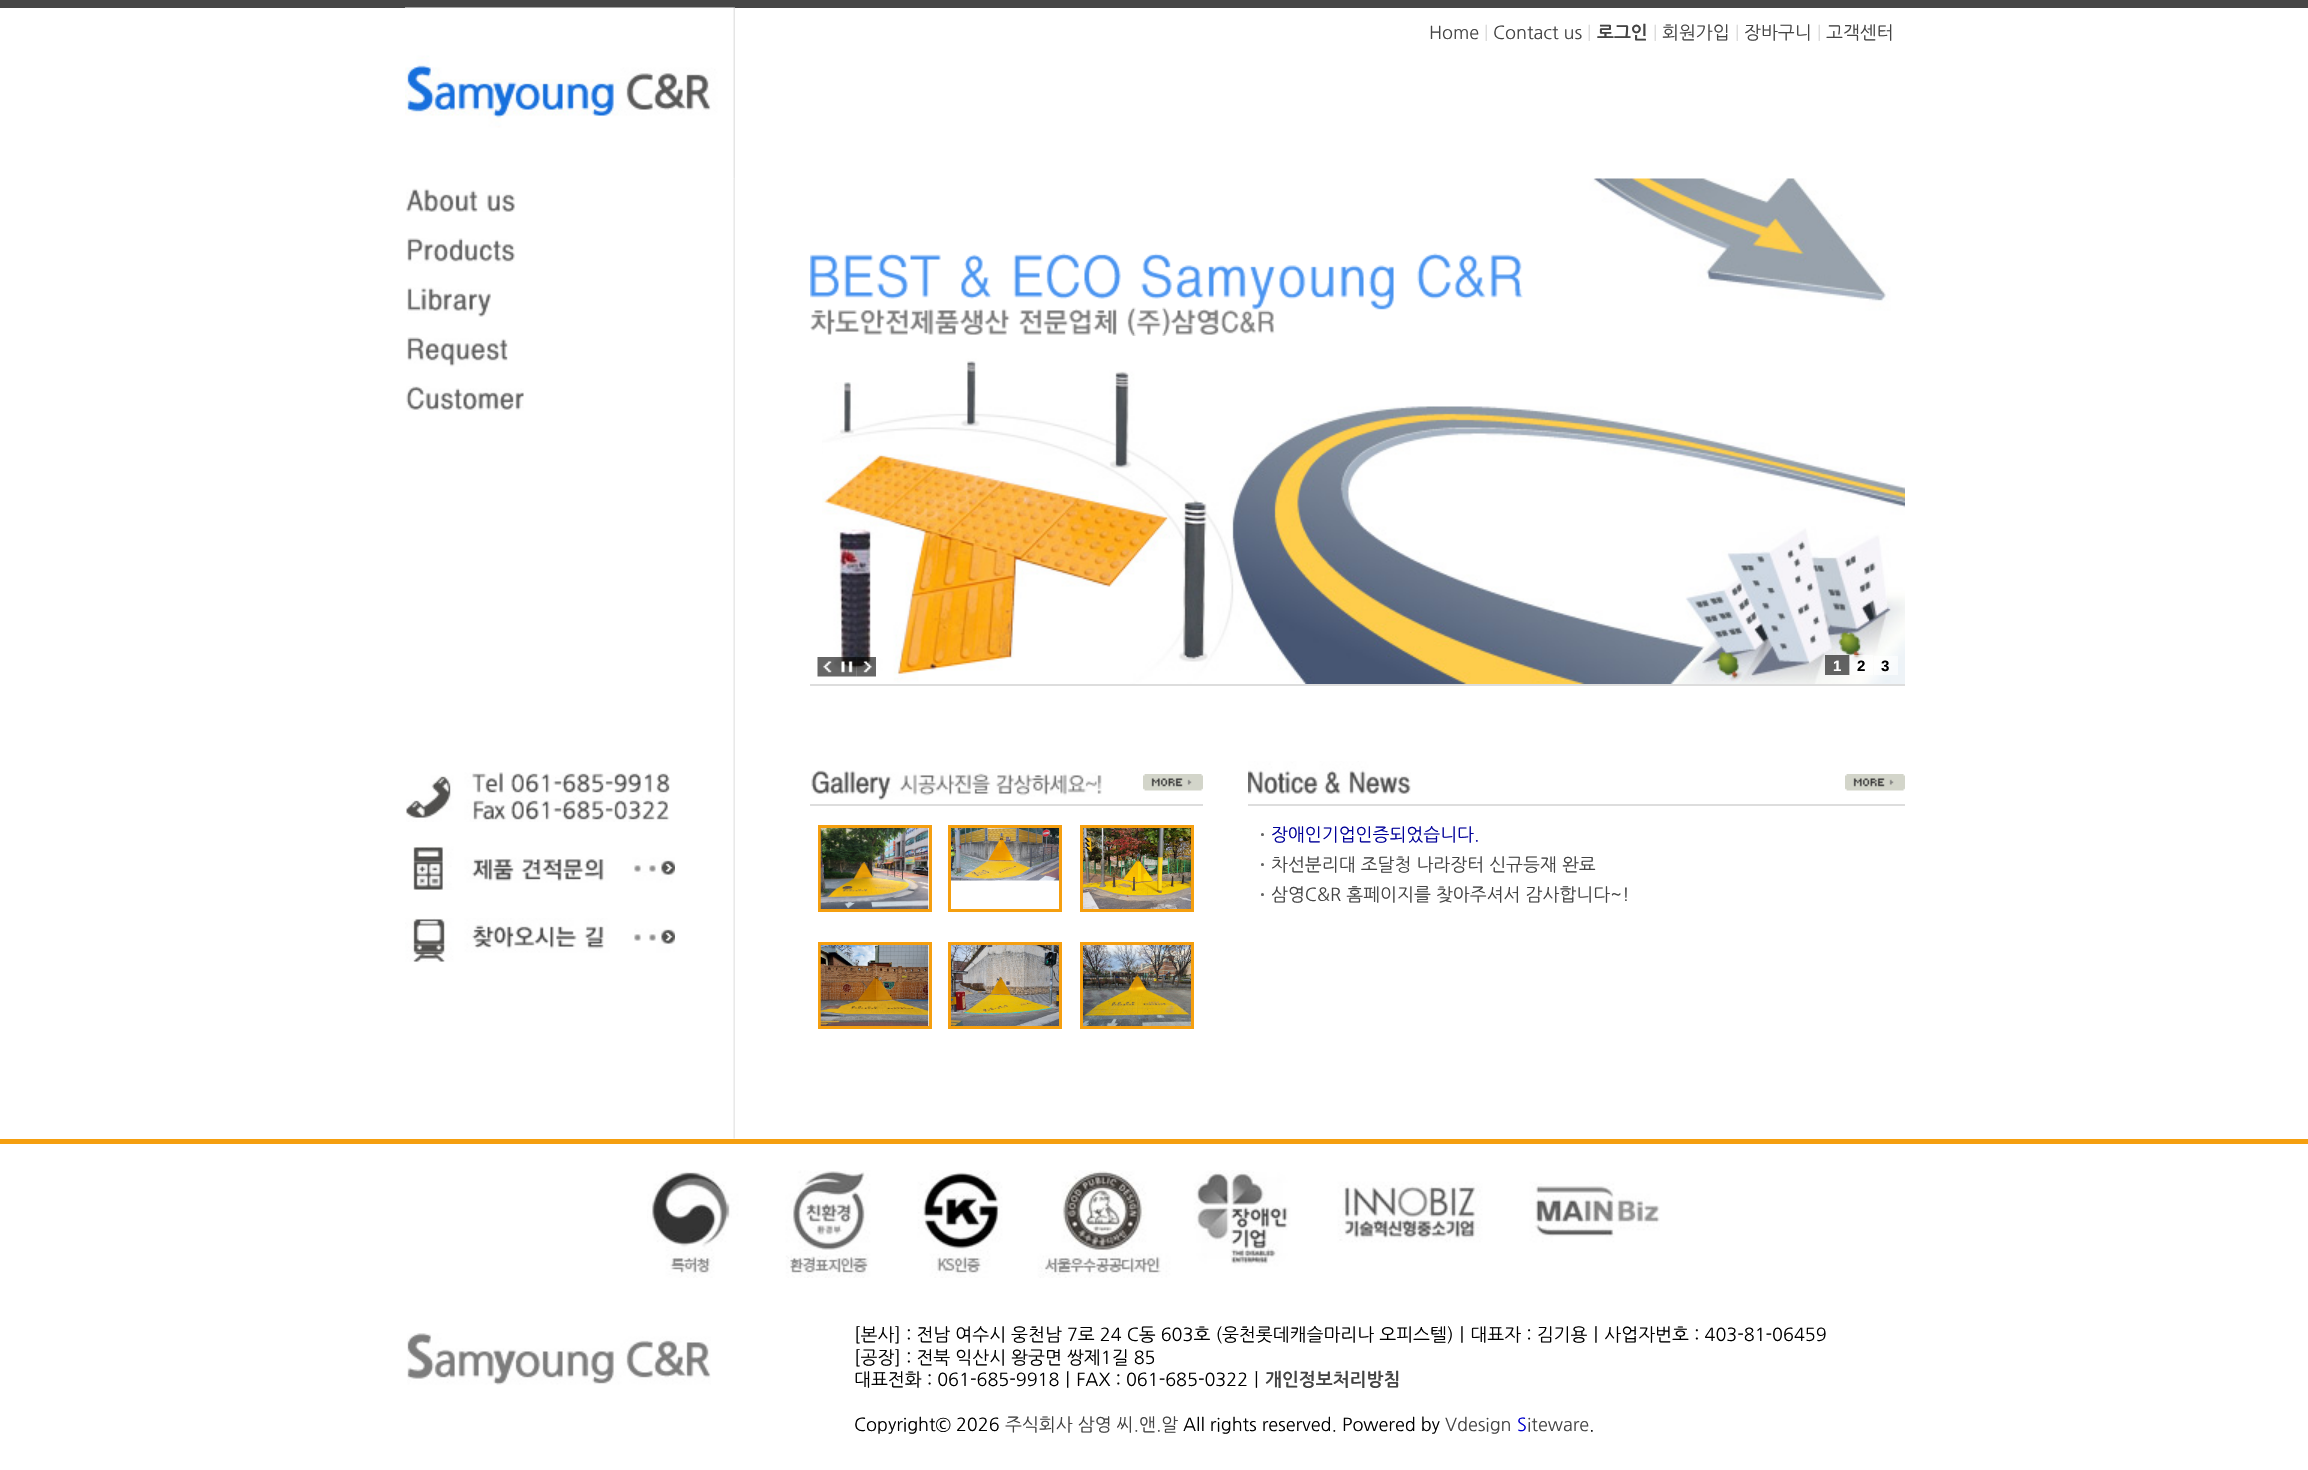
void draw(SkCanvas* canvas) {
    SkPaint paint;
    paint.setAntiAlias(true);
    canvas->clear(0xFFFFFFFF);
    paint.setColor(0xFF464646);
    canvas->drawRect(SkRect::MakeXYWH(0, 0, 2308, 8), paint);
    canvas->drawImageRect(SkImages::DeferredFromEncodedData(SkData::MakeFromFileName("img2.png")), SkRect::MakeXYWH(733, 178, 2, 961), SkSamplingOptions());
    paint.setColor(0xFFEEEEEE);
    canvas->drawRect(SkRect::MakeXYWH(734, 178, 1, 1), paint);
    canvas->drawImageRect(SkImages::DeferredFromEncodedData(SkData::MakeFromFileName("img1.png")), SkRect::MakeXYWH(405, 7, 330, 172), SkSamplingOptions());
    SkFont font1(fontMgr->matchFamilyStyle("NanumGothic", SkFontStyle::Normal()), 18);
    font1.setSubpixel(true);
    paint.setColor(0xFF444444);
    canvas->drawString("Home", 1429, 39, font1, paint);
    paint.setColor(0xFFDDDDDD);
    canvas->drawString("|", 1484, 39, font1, paint);
    paint.setColor(0xFF444444);
    canvas->drawString("Contact us", 1493, 39, font1, paint);
    paint.setColor(0xFFDDDDDD);
    canvas->drawString("|", 1587, 39, font1, paint);
    SkFont font2(fontMgr->matchFamilyStyle("NanumGothic", SkFontStyle::Bold()), 18);
    font2.setSubpixel(true);
    paint.setColor(0xFF444444);
    canvas->drawString("로그인", 1597, 39, font2, paint);
    paint.setColor(0xFFDDDDDD);
    canvas->drawString("|", 1653, 39, font1, paint);
    paint.setColor(0xFF444444);
    canvas->drawString("회원가입", 1662, 39, font1, paint);
    paint.setColor(0xFFDDDDDD);
    canvas->drawString("|", 1735, 39, font1, paint);
    paint.setColor(0xFF444444);
    canvas->drawString("장바구니", 1744, 39, font1, paint);
    paint.setColor(0xFFDDDDDD);
    canvas->drawString("|", 1817, 39, font1, paint);
    paint.setColor(0xFF444444);
    canvas->drawString("고객센터", 1826, 39, font1, paint);
    canvas->drawImageRect(SkImages::DeferredFromEncodedData(SkData::MakeFromFileName("img3.png")), SkRect::MakeXYWH(406, 188, 109, 24), SkSamplingOptions());
    canvas->drawImageRect(SkImages::DeferredFromEncodedData(SkData::MakeFromFileName("img4.png")), SkRect::MakeXYWH(407, 238, 108, 26), SkSamplingOptions());
    canvas->drawImageRect(SkImages::DeferredFromEncodedData(SkData::MakeFromFileName("img5.png")), SkRect::MakeXYWH(407, 287, 84, 30), SkSamplingOptions());
    canvas->drawImageRect(SkImages::DeferredFromEncodedData(SkData::MakeFromFileName("img6.png")), SkRect::MakeXYWH(407, 337, 101, 30), SkSamplingOptions());
    canvas->drawImageRect(SkImages::DeferredFromEncodedData(SkData::MakeFromFileName("img7.png")), SkRect::MakeXYWH(406, 386, 118, 25), SkSamplingOptions());
    canvas->drawImageRect(SkImages::DeferredFromEncodedData(SkData::MakeFromFileName("img8.png")), SkRect::MakeXYWH(406, 772, 264, 50), SkSamplingOptions());
    canvas->drawImageRect(SkImages::DeferredFromEncodedData(SkData::MakeFromFileName("img9.png")), SkRect::MakeXYWH(413, 846, 262, 44), SkSamplingOptions());
    canvas->drawImageRect(SkImages::DeferredFromEncodedData(SkData::MakeFromFileName("img10.png")), SkRect::MakeXYWH(405, 918, 270, 44), SkSamplingOptions());
    paint.setColor(0xFFDDDDDD);
    canvas->drawRect(SkRect::MakeXYWH(810, 684, 1095, 2), paint);
    canvas->drawImageRect(SkImages::DeferredFromEncodedData(SkData::MakeFromFileName("img11.png")), SkRect::MakeXYWH(822, 178, 1083, 506), SkSamplingOptions());
    canvas->drawImageRect(SkImages::DeferredFromEncodedData(SkData::MakeFromFileName("img12.png")), SkRect::MakeXYWH(810, 253, 713, 83), SkSamplingOptions());
    canvas->drawImageRect(SkImages::DeferredFromEncodedData(SkData::MakeFromFileName("img13.png")), SkRect::MakeXYWH(817, 657, 20, 20), SkSamplingOptions());
    canvas->drawImageRect(SkImages::DeferredFromEncodedData(SkData::MakeFromFileName("img14.png")), SkRect::MakeXYWH(837, 657, 20, 20), SkSamplingOptions());
    canvas->drawImageRect(SkImages::DeferredFromEncodedData(SkData::MakeFromFileName("img15.png")), SkRect::MakeXYWH(856, 657, 20, 20), SkSamplingOptions());
    paint.setColor(0x99000000);
    canvas->drawRect(SkRect::MakeXYWH(1825, 655, 25, 20), paint);
    SkFont font3(fontMgr->matchFamilyStyle("Liberation Sans", SkFontStyle::Bold()), 15);
    font3.setSubpixel(true);
    paint.setColor(0xFFFFFFFF);
    canvas->drawString("1", 1833, 671, font3, paint);
    paint.setColor(0x99FFFFFF);
    canvas->drawRect(SkRect::MakeXYWH(1849, 655, 24, 20), paint);
    paint.setColor(0xFF000000);
    canvas->drawString("2", 1857, 671, font3, paint);
    paint.setColor(0x99FFFFFF);
    canvas->drawRect(SkRect::MakeXYWH(1874, 656, 24, 19), paint);
    paint.setColor(0xFF000000);
    canvas->drawString("3", 1881, 671, font3, paint);
    canvas->drawImageRect(SkImages::DeferredFromEncodedData(SkData::MakeFromFileName("img16.png")), SkRect::MakeXYWH(811, 770, 291, 30), SkSamplingOptions());
    canvas->drawImageRect(SkImages::DeferredFromEncodedData(SkData::MakeFromFileName("img17.png")), SkRect::MakeXYWH(1143, 774, 60, 17), SkSamplingOptions());
    paint.setColor(0xFFDDDDDD);
    canvas->drawRect(SkRect::MakeXYWH(810, 804, 393, 2), paint);
    paint.setStyle(SkPaint::kStroke_Style);
    paint.setStrokeWidth(3);
    paint.setColor(0xFFF59F0F);
    canvas->drawRect(SkRect::MakeXYWH(819.5f, 826.5f, 111, 84), paint);
    canvas->drawImageRect(SkImages::DeferredFromEncodedData(SkData::MakeFromFileName("img18.png")), SkRect::MakeXYWH(820, 828, 109, 81), SkSamplingOptions());
    canvas->drawRect(SkRect::MakeXYWH(949.5f, 826.5f, 111, 84), paint);
    canvas->drawImageRect(SkImages::DeferredFromEncodedData(SkData::MakeFromFileName("img19.png")), SkRect::MakeXYWH(951, 828, 108, 53), SkSamplingOptions());
    canvas->drawRect(SkRect::MakeXYWH(1081.5f, 826.5f, 111, 84), paint);
    canvas->drawImageRect(SkImages::DeferredFromEncodedData(SkData::MakeFromFileName("img20.png")), SkRect::MakeXYWH(1083, 828, 108, 81), SkSamplingOptions());
    canvas->drawRect(SkRect::MakeXYWH(819.5f, 943.5f, 111, 84), paint);
    canvas->drawImageRect(SkImages::DeferredFromEncodedData(SkData::MakeFromFileName("img21.png")), SkRect::MakeXYWH(820, 945, 109, 81), SkSamplingOptions());
    canvas->drawRect(SkRect::MakeXYWH(949.5f, 943.5f, 111, 84), paint);
    canvas->drawImageRect(SkImages::DeferredFromEncodedData(SkData::MakeFromFileName("img22.png")), SkRect::MakeXYWH(951, 945, 108, 81), SkSamplingOptions());
    canvas->drawRect(SkRect::MakeXYWH(1081.5f, 943.5f, 111, 84), paint);
    canvas->drawImageRect(SkImages::DeferredFromEncodedData(SkData::MakeFromFileName("img23.png")), SkRect::MakeXYWH(1083, 945, 108, 81), SkSamplingOptions());
    canvas->drawImageRect(SkImages::DeferredFromEncodedData(SkData::MakeFromFileName("img24.png")), SkRect::MakeXYWH(1248, 761, 163, 33), SkSamplingOptions());
    canvas->drawImageRect(SkImages::DeferredFromEncodedData(SkData::MakeFromFileName("img17.png")), SkRect::MakeXYWH(1845, 774, 60, 17), SkSamplingOptions());
    paint.setStyle(SkPaint::kFill_Style);
    paint.setColor(0xFFDDDDDD);
    canvas->drawRect(SkRect::MakeXYWH(1248, 804, 657, 2), paint);
    paint.setColor(0xFF666666);
    canvas->drawString("ㆍ", 1254, 841, font2, paint);
    paint.setColor(0xFF000099);
    canvas->drawString("장애인기업인증되었습니다.", 1271, 841, font1, paint);
    paint.setColor(0xFF666666);
    canvas->drawString("ㆍ", 1254, 871, font2, paint);
    paint.setColor(0xFF444444);
    canvas->drawString("차선분리대 조달청 나라장터 신규등재 완료", 1271, 871, font1, paint);
    paint.setColor(0xFF666666);
    canvas->drawString("ㆍ", 1254, 901, font2, paint);
    paint.setColor(0xFF444444);
    canvas->drawString("삼영C&R 홈페이지를 찾아주셔서 감사합니다~!", 1271, 901, font1, paint);
    paint.setColor(0xFFF59F0F);
    canvas->drawRect(SkRect::MakeXYWH(0, 1139, 2308, 5), paint);
    canvas->drawImageRect(SkImages::DeferredFromEncodedData(SkData::MakeFromFileName("img25.png")), SkRect::MakeXYWH(647, 1170, 1013, 108), SkSamplingOptions());
    canvas->drawImageRect(SkImages::DeferredFromEncodedData(SkData::MakeFromFileName("img26.png")), SkRect::MakeXYWH(407, 1333, 304, 52), SkSamplingOptions());
    paint.setColor(0xFF000000);
    canvas->drawString("[본사] : 전남 여수시 웅천남 7로 24 C동 603호 (웅천롯데캐슬마리나 오피스텔)ㅣ대표자 : 김기용ㅣ사업자번호 : 403-81-06459", 854, 1341, font1, paint);
    canvas->drawString("[공장] : 전북 익산시 왕궁면 쌍제1길 85", 854, 1364, font1, paint);
    canvas->drawString("대표전화 : 061-685-9918ㅣFAX : 061-685-0322ㅣ", 854, 1386, font1, paint);
    paint.setColor(0xFF444444);
    canvas->drawString("개인정보처리방침", 1265, 1386, font2, paint);
    paint.setColor(0xFF000000);
    canvas->drawString("Copyright© 2026", 854, 1431, font1, paint);
    paint.setColor(0xFF444444);
    canvas->drawString("주식회사 삼영 씨.앤.알", 1005, 1431, font1, paint);
    paint.setColor(0xFF000000);
    canvas->drawString("All rights reserved. Powered by", 1183, 1431, font1, paint);
    paint.setColor(0xFF444444);
    canvas->drawString("Vdesign", 1445, 1431, font1, paint);
    paint.setColor(0xFF0000CF);
    canvas->drawString("S", 1517, 1431, font1, paint);
    paint.setColor(0xFF444444);
    canvas->drawString("iteware", 1527, 1431, font1, paint);
    paint.setColor(0xFF000000);
    canvas->drawString(".", 1589, 1431, font1, paint);
}
